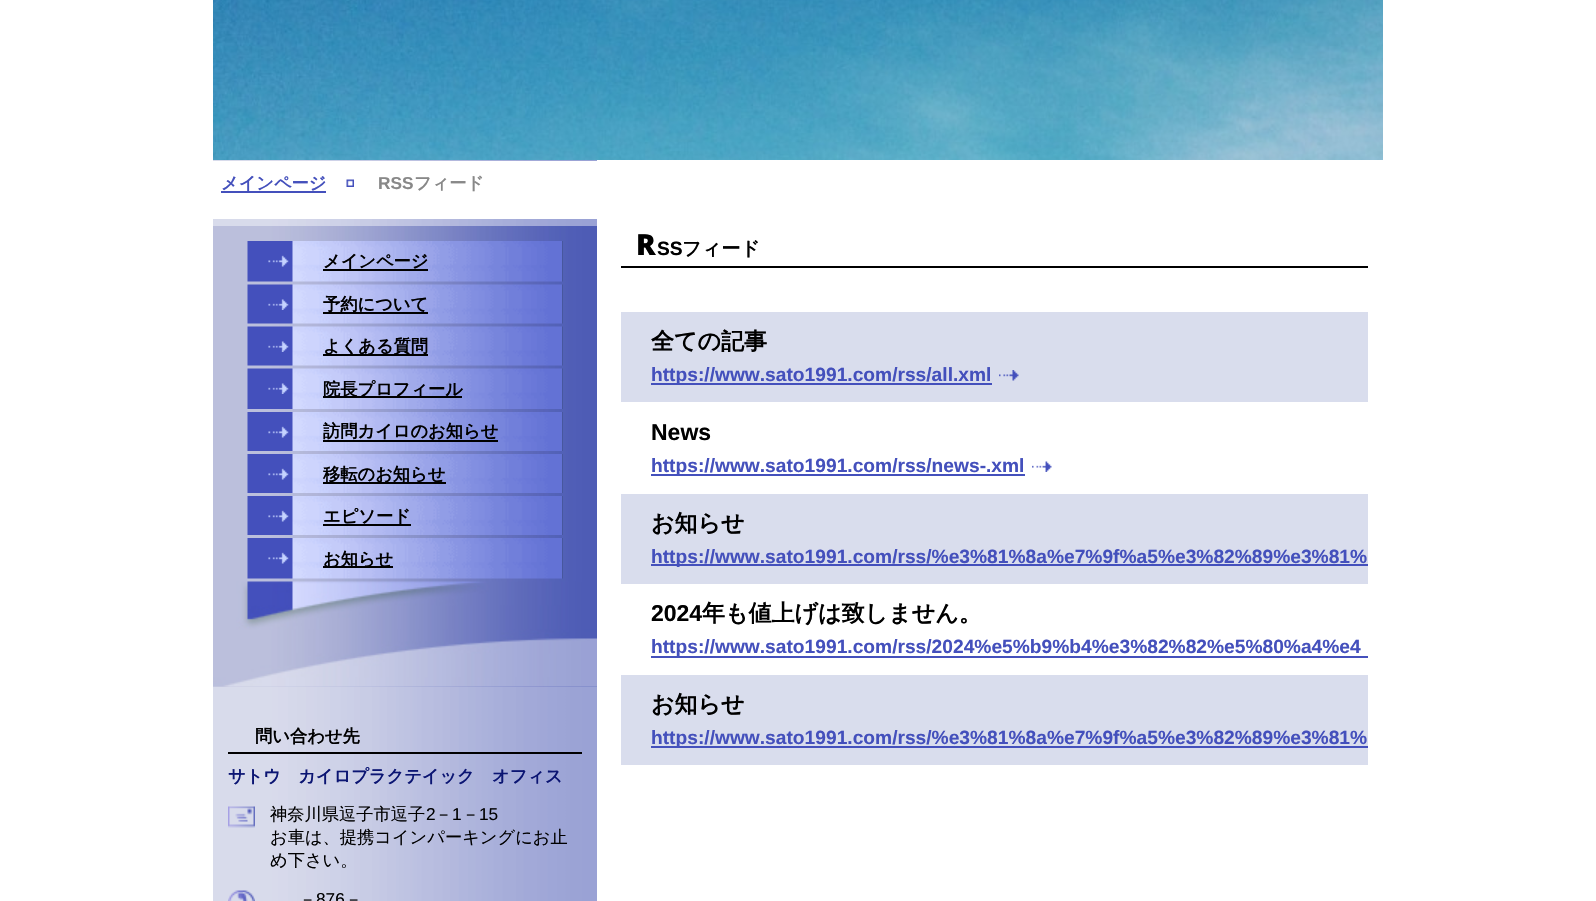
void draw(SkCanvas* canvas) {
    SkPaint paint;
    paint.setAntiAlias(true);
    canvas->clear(0xFFFFFFFF);
    canvas->drawImageRect(SkImages::DeferredFromEncodedData(SkData::MakeFromFileName("img1.png")), SkRect::MakeXYWH(213, 160, 384, 741), SkSamplingOptions());
    canvas->drawImageRect(SkImages::DeferredFromEncodedData(SkData::MakeFromFileName("img2.png")), SkRect::MakeXYWH(213, 0, 1170, 160), SkSamplingOptions());
    paint.setColor(0xFFFFFFFF);
    canvas->drawRect(SkRect::MakeXYWH(213, 161, 384, 58), paint);
    paint.setColor(0xFF4450BC);
    canvas->drawRect(SkRect::MakeXYWH(221, 191, 105, 2), paint);
    SkFont font1(fontMgr->matchFamilyStyle("WenQuanYi Zen Hei", SkFontStyle::Bold()), 17.25f);
    font1.setSubpixel(true);
    canvas->drawString("メインページ", 221, 189, font1, paint);
    canvas->drawImageRect(SkImages::DeferredFromEncodedData(SkData::MakeFromFileName("img3.png")), SkRect::MakeXYWH(346, 179, 8, 8), SkSamplingOptions());
    SkFont font2(fontMgr->matchFamilyStyle("Liberation Sans", SkFontStyle::Bold()), 17.25f);
    font2.setSubpixel(true);
    paint.setColor(0xFF888888);
    canvas->drawString("RSS", 378, 189, font2, paint);
    canvas->drawString("フィード", 414, 189, font1, paint);
    canvas->drawImageRect(SkImages::DeferredFromEncodedData(SkData::MakeFromFileName("img4.png")), SkRect::MakeXYWH(213, 226, 384, 461), SkSamplingOptions());
    canvas->drawImageRect(SkImages::DeferredFromEncodedData(SkData::MakeFromFileName("img5.png")), SkRect::MakeXYWH(247, 241, 316, 41), SkSamplingOptions());
    canvas->drawImageRect(SkImages::DeferredFromEncodedData(SkData::MakeFromFileName("img6.png")), SkRect::MakeXYWH(268, 255, 21, 12), SkSamplingOptions());
    paint.setColor(0xFF000000);
    canvas->drawRect(SkRect::MakeXYWH(323, 269, 105, 2), paint);
    canvas->drawString("メインページ", 323, 267, font1, paint);
    canvas->drawImageRect(SkImages::DeferredFromEncodedData(SkData::MakeFromFileName("img7.png")), SkRect::MakeXYWH(247, 284, 316, 40), SkSamplingOptions());
    canvas->drawImageRect(SkImages::DeferredFromEncodedData(SkData::MakeFromFileName("img8.png")), SkRect::MakeXYWH(268, 299, 21, 11), SkSamplingOptions());
    canvas->drawRect(SkRect::MakeXYWH(323, 312, 105, 2), paint);
    canvas->drawString("予約について", 323, 310, font1, paint);
    canvas->drawImageRect(SkImages::DeferredFromEncodedData(SkData::MakeFromFileName("img9.png")), SkRect::MakeXYWH(247, 326, 316, 40), SkSamplingOptions());
    canvas->drawImageRect(SkImages::DeferredFromEncodedData(SkData::MakeFromFileName("img8.png")), SkRect::MakeXYWH(268, 341, 21, 11), SkSamplingOptions());
    canvas->drawRect(SkRect::MakeXYWH(323, 354, 105, 2), paint);
    canvas->drawString("よくある質問", 323, 352, font1, paint);
    canvas->drawImageRect(SkImages::DeferredFromEncodedData(SkData::MakeFromFileName("img10.png")), SkRect::MakeXYWH(247, 368, 316, 41), SkSamplingOptions());
    canvas->drawImageRect(SkImages::DeferredFromEncodedData(SkData::MakeFromFileName("img8.png")), SkRect::MakeXYWH(268, 383, 21, 11), SkSamplingOptions());
    canvas->drawRect(SkRect::MakeXYWH(323, 396, 139, 2), paint);
    canvas->drawString("院長プロフィール", 323, 395, font1, paint);
    canvas->drawImageRect(SkImages::DeferredFromEncodedData(SkData::MakeFromFileName("img11.png")), SkRect::MakeXYWH(247, 412, 316, 39), SkSamplingOptions());
    canvas->drawImageRect(SkImages::DeferredFromEncodedData(SkData::MakeFromFileName("img6.png")), SkRect::MakeXYWH(268, 426, 21, 12), SkSamplingOptions());
    canvas->drawString("訪問カイロのお知らせ", 323, 437, font1, paint);
    canvas->drawRect(SkRect::MakeXYWH(323, 440, 175, 2), paint);
    canvas->drawImageRect(SkImages::DeferredFromEncodedData(SkData::MakeFromFileName("img12.png")), SkRect::MakeXYWH(247, 454, 316, 39), SkSamplingOptions());
    canvas->drawImageRect(SkImages::DeferredFromEncodedData(SkData::MakeFromFileName("img6.png")), SkRect::MakeXYWH(268, 468, 21, 12), SkSamplingOptions());
    canvas->drawRect(SkRect::MakeXYWH(323, 482, 123, 2), paint);
    canvas->drawString("移転のお知らせ", 323, 480, font1, paint);
    canvas->drawImageRect(SkImages::DeferredFromEncodedData(SkData::MakeFromFileName("img13.png")), SkRect::MakeXYWH(247, 496, 316, 39), SkSamplingOptions());
    canvas->drawImageRect(SkImages::DeferredFromEncodedData(SkData::MakeFromFileName("img6.png")), SkRect::MakeXYWH(268, 510, 21, 12), SkSamplingOptions());
    canvas->drawRect(SkRect::MakeXYWH(323, 524, 88, 2), paint);
    canvas->drawString("エピソード", 323, 522, font1, paint);
    canvas->drawImageRect(SkImages::DeferredFromEncodedData(SkData::MakeFromFileName("img14.png")), SkRect::MakeXYWH(247, 538, 316, 41), SkSamplingOptions());
    canvas->drawImageRect(SkImages::DeferredFromEncodedData(SkData::MakeFromFileName("img6.png")), SkRect::MakeXYWH(268, 552, 21, 12), SkSamplingOptions());
    canvas->drawRect(SkRect::MakeXYWH(323, 566, 70, 2), paint);
    canvas->drawString("お知らせ", 323, 565, font1, paint);
    canvas->drawImageRect(SkImages::DeferredFromEncodedData(SkData::MakeFromFileName("img15.png")), SkRect::MakeXYWH(213, 581, 384, 106), SkSamplingOptions());
    canvas->drawRect(SkRect::MakeXYWH(228, 752, 354, 2), paint);
    SkFont font3(fontMgr->matchFamilyStyle("Noto Sans", SkFontStyle(100, SkFontStyle::kNormal_Width, SkFontStyle::kUpright_Slant)), 26);
    font3.setSubpixel(true);
    canvas->drawString("お", 228, 742, font3, paint);
    canvas->drawString("問い合わせ先", 255, 742, font1, paint);
    paint.setColor(0xFF0B1573);
    canvas->drawString("サトウ　カイロプラクテイック　オフィス", 228, 782, font1, paint);
    canvas->drawImageRect(SkImages::DeferredFromEncodedData(SkData::MakeFromFileName("img16.png")), SkRect::MakeXYWH(228, 806, 27, 22), SkSamplingOptions());
    SkFont font4(fontMgr->matchFamilyStyle("WenQuanYi Zen Hei", SkFontStyle(500, SkFontStyle::kNormal_Width, SkFontStyle::kUpright_Slant)), 17.25f);
    font4.setSubpixel(true);
    paint.setColor(0xFF000000);
    canvas->drawString("神奈川県逗子市逗子", 270, 820, font4, paint);
    SkFont font5(fontMgr->matchFamilyStyle("Liberation Sans", SkFontStyle::Normal()), 17.25f);
    font5.setSubpixel(true);
    canvas->drawString("2", 426, 820, font5, paint);
    canvas->drawString("－", 435, 820, font4, paint);
    canvas->drawString("1", 452, 820, font5, paint);
    canvas->drawString("－", 462, 820, font4, paint);
    canvas->drawString("15", 479, 820, font5, paint);
    canvas->drawString("お車は、提携コインパーキングにお止", 270, 843, font4, paint);
    canvas->drawString("め下さい。", 270, 866, font4, paint);
    canvas->drawImageRect(SkImages::DeferredFromEncodedData(SkData::MakeFromFileName("img17.png")), SkRect::MakeXYWH(228, 890, 27, 11), SkSamplingOptions());
    canvas->drawString("－", 299, 905, font4, paint);
    canvas->drawString("876", 316, 905, font5, paint);
    canvas->drawString("－", 345, 905, font4, paint);
    canvas->drawRect(SkRect::MakeXYWH(621, 266, 747, 2), paint);
    SkFont font6(fontMgr->matchFamilyStyle("Noto Sans", SkFontStyle(900, SkFontStyle::kNormal_Width, SkFontStyle::kUpright_Slant)), 29);
    font6.setSubpixel(true);
    canvas->drawString("R", 636, 255, font6, paint);
    SkFont font7(fontMgr->matchFamilyStyle("Liberation Sans", SkFontStyle::Bold()), 19.2f);
    font7.setSubpixel(true);
    canvas->drawString("SS", 657, 255, font7, paint);
    SkFont font8(fontMgr->matchFamilyStyle("WenQuanYi Zen Hei", SkFontStyle::Bold()), 19.2f);
    font8.setSubpixel(true);
    canvas->drawString("フィード", 682, 255, font8, paint);
    paint.setColor(0xFFD9DDED);
    canvas->drawRect(SkRect::MakeXYWH(621, 312, 747, 90), paint);
    SkFont font9(fontMgr->matchFamilyStyle("WenQuanYi Zen Hei", SkFontStyle::Bold()), 23);
    font9.setSubpixel(true);
    paint.setColor(0xFF000000);
    canvas->drawString("全ての記事", 651, 349, font9, paint);
    paint.setColor(0xFF4450BC);
    canvas->drawRect(SkRect::MakeXYWH(651, 383, 341, 2), paint);
    canvas->drawString("https://www.sato1991.com/rss/all.xml", 651, 381, font7, paint);
    canvas->drawImageRect(SkImages::DeferredFromEncodedData(SkData::MakeFromFileName("img18.png")), SkRect::MakeXYWH(999, 370, 20, 11), SkSamplingOptions());
    SkFont font10(fontMgr->matchFamilyStyle("Liberation Sans", SkFontStyle::Bold()), 23);
    font10.setSubpixel(true);
    paint.setColor(0xFF000000);
    canvas->drawString("News", 651, 440, font10, paint);
    paint.setColor(0xFF4450BC);
    canvas->drawRect(SkRect::MakeXYWH(651, 474, 374, 2), paint);
    canvas->drawString("https://www.sato1991.com/rss/news-.xml", 651, 472, font7, paint);
    canvas->drawImageRect(SkImages::DeferredFromEncodedData(SkData::MakeFromFileName("img19.png")), SkRect::MakeXYWH(1032, 461, 20, 11), SkSamplingOptions());
    paint.setColor(0xFFD9DDED);
    canvas->drawRect(SkRect::MakeXYWH(621, 494, 747, 90), paint);
    paint.setColor(0xFF000000);
    canvas->drawString("お知らせ", 651, 531, font9, paint);
    paint.setColor(0xFF4450BC);
    canvas->drawRect(SkRect::MakeXYWH(651, 564, 717, 2), paint);
    canvas->drawString("https://www.sato1991.com/rss/%e3%81%8a%e7%9f%a5%e3%82%89%e3%81%", 651, 563, font7, paint);
    paint.setColor(0xFF000000);
    canvas->drawString("2024", 651, 621, font10, paint);
    canvas->drawString("年も値上げは致しません。", 702, 621, font9, paint);
    paint.setColor(0xFF4450BC);
    canvas->drawRect(SkRect::MakeXYWH(651, 656, 717, 2), paint);
    canvas->drawString("https://www.sato1991.com/rss/2024%e5%b9%b4%e3%82%82%e5%80%a4%e4", 651, 653, font7, paint);
    paint.setColor(0xFFD9DDED);
    canvas->drawRect(SkRect::MakeXYWH(621, 675, 747, 90), paint);
    paint.setColor(0xFF000000);
    canvas->drawString("お知らせ", 651, 712, font9, paint);
    paint.setColor(0xFF4450BC);
    canvas->drawRect(SkRect::MakeXYWH(651, 746, 717, 2), paint);
    canvas->drawString("https://www.sato1991.com/rss/%e3%81%8a%e7%9f%a5%e3%82%89%e3%81%", 651, 744, font7, paint);
}
